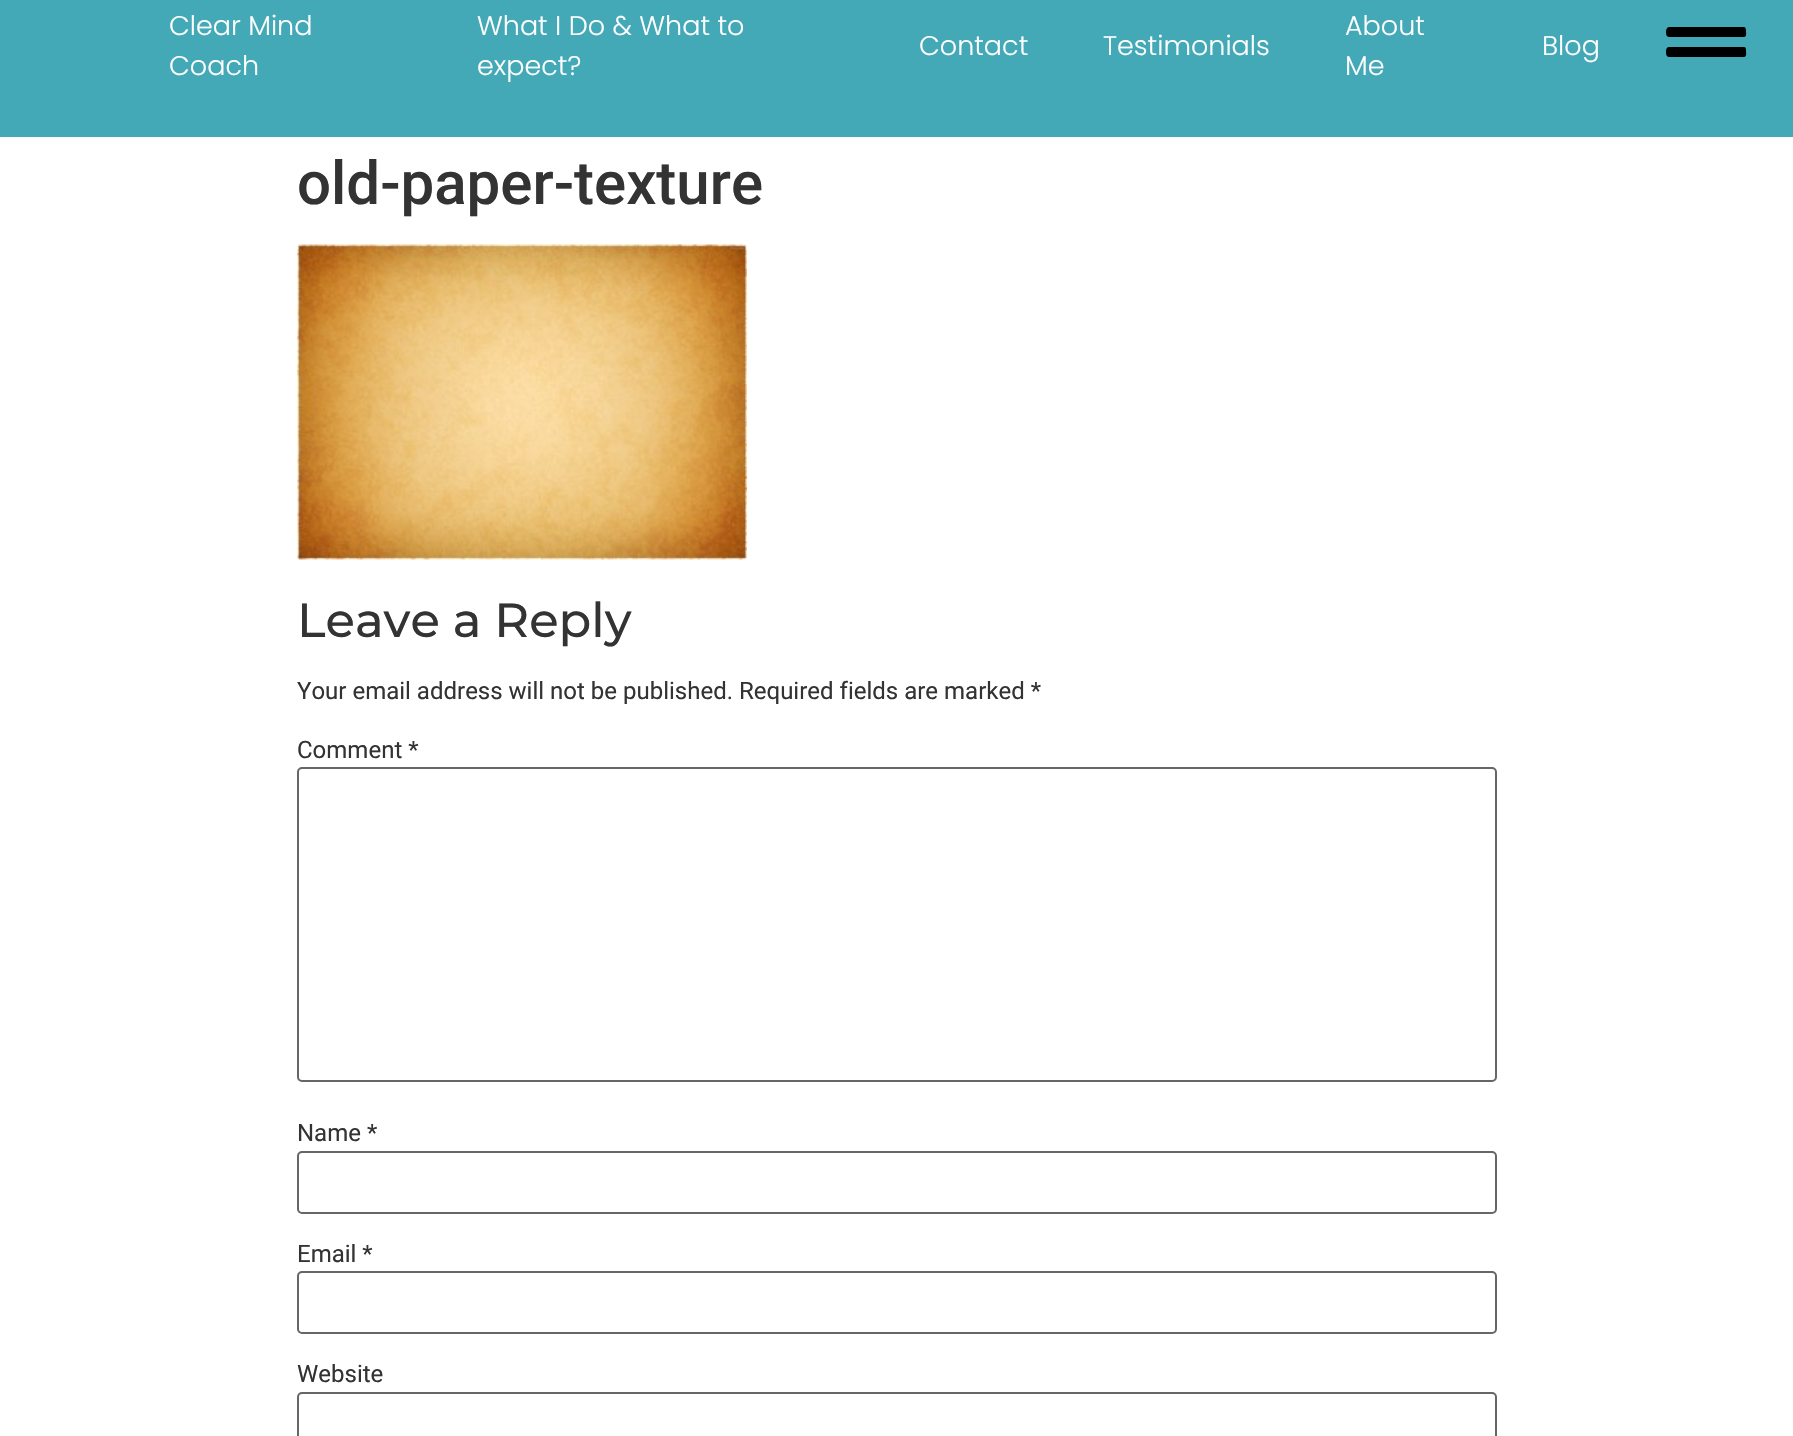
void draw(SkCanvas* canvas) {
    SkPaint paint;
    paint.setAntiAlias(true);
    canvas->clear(0xFFFFFFFF);
    paint.setColor(0xFF44A9B7);
    canvas->drawRect(SkRect::MakeXYWH(0, 0, 1793, 137), paint);
    SkFont font1(fontMgr->matchFamilyStyle("Poppins", SkFontStyle(300, SkFontStyle::kNormal_Width, SkFontStyle::kUpright_Slant)), 27);
    font1.setSubpixel(true);
    paint.setColor(0xFFFFFEFE);
    canvas->drawString("Clear Mind", 169, 35, font1, paint);
    canvas->drawString("Coach", 169, 75, font1, paint);
    canvas->drawString("What I Do & What to", 477, 35, font1, paint);
    canvas->drawString("expect?", 477, 75, font1, paint);
    canvas->drawString("Contact", 919, 55, font1, paint);
    canvas->drawString("Testimonials", 1103, 55, font1, paint);
    canvas->drawString("About", 1345, 35, font1, paint);
    canvas->drawString("Me", 1345, 75, font1, paint);
    canvas->drawString("Blog", 1542, 55, font1, paint);
    paint.setColor(0xFF000000);
    canvas->drawPath(SkPathBuilder().moveTo(1744, 47).cubicTo(1746, 47, 1746, 49, 1746, 51).cubicTo(1746, 53, 1747, 57, 1744, 57).lineTo(1669, 57).cubicTo(1666, 57, 1666, 53, 1666, 51).cubicTo(1666, 49, 1667, 47, 1669, 47).close().moveTo(1744, 27).cubicTo(1746, 27, 1746, 30, 1746, 31).cubicTo(1746, 33, 1747, 37, 1744, 37).lineTo(1669, 37).cubicTo(1666, 37, 1666, 33, 1666, 31).cubicTo(1666, 30, 1667, 27, 1669, 27).close().detach(), paint);
    SkFont font2(fontMgr->matchFamilyStyle("Roboto", SkFontStyle(500, SkFontStyle::kNormal_Width, SkFontStyle::kUpright_Slant)), 60);
    font2.setSubpixel(true);
    paint.setColor(0xFF333333);
    canvas->drawString("old-paper-texture", 297, 204, font2, paint);
    canvas->drawImageRect(SkImages::DeferredFromEncodedData(SkData::MakeFromFileName("img1.png")), SkRect::MakeXYWH(297, 244, 450, 316), SkSamplingOptions());
    SkFont font3(fontMgr->matchFamilyStyle("Montserrat", SkFontStyle(500, SkFontStyle::kNormal_Width, SkFontStyle::kUpright_Slant)), 48);
    font3.setSubpixel(true);
    canvas->drawString("Leave a Reply", 297, 637, font3, paint);
    SkFont font4(fontMgr->matchFamilyStyle("Roboto", SkFontStyle::Normal()), 24);
    font4.setSubpixel(true);
    canvas->drawString("Your email address will not be published. Required fields are marked *", 297, 699, font4, paint);
    canvas->drawString("Comment *", 297, 758, font4, paint);
    paint.setStyle(SkPaint::kStroke_Style);
    paint.setStrokeWidth(2);
    paint.setColor(0xFF666666);
    canvas->drawRoundRect(SkRect::MakeXYWH(298, 768, 1198, 313), 4, 4, paint);
    paint.setStyle(SkPaint::kFill_Style);
    paint.setColor(0xFF333333);
    canvas->drawString("Name *", 297, 1141, font4, paint);
    paint.setStyle(SkPaint::kStroke_Style);
    paint.setColor(0xFF666666);
    canvas->drawRoundRect(SkRect::MakeXYWH(298, 1152, 1198, 61), 4, 4, paint);
    paint.setStyle(SkPaint::kFill_Style);
    paint.setColor(0xFF333333);
    canvas->drawString("Email *", 297, 1262, font4, paint);
    paint.setStyle(SkPaint::kStroke_Style);
    paint.setColor(0xFF666666);
    canvas->drawRoundRect(SkRect::MakeXYWH(298, 1272, 1198, 61), 4, 4, paint);
    paint.setStyle(SkPaint::kFill_Style);
    paint.setColor(0xFF333333);
    canvas->drawString("Website", 297, 1382, font4, paint);
    paint.setStyle(SkPaint::kStroke_Style);
    paint.setColor(0xFF666666);
    canvas->drawRoundRect(SkRect::MakeXYWH(298, 1393, 1198, 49), 4, 4, paint);
}
